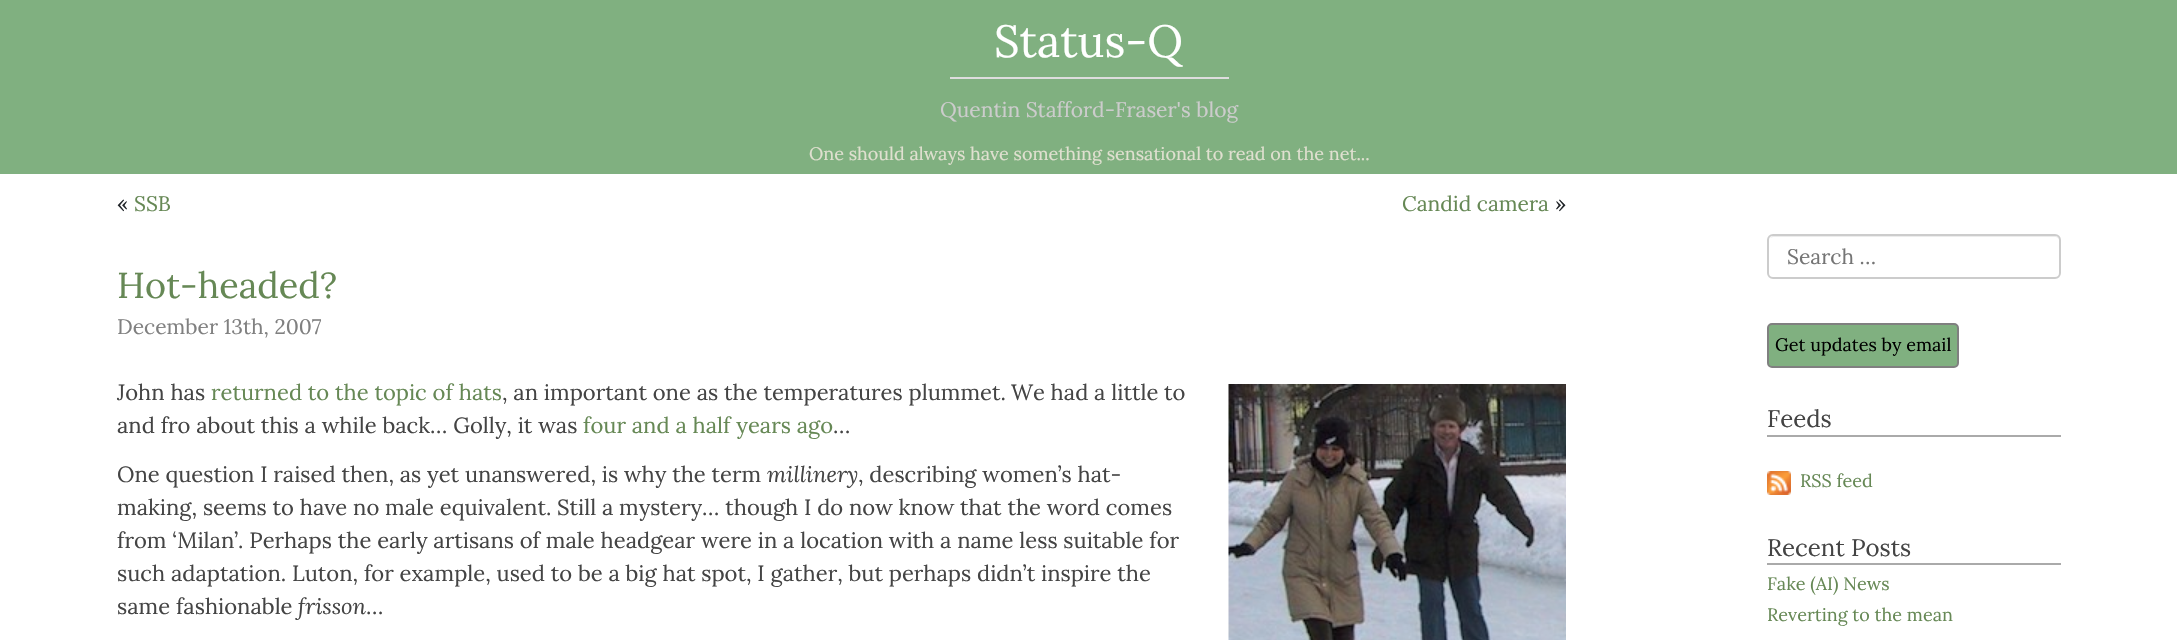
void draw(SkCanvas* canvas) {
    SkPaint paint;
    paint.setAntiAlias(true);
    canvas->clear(0xFFFFFFFF);
    paint.setColor(0xFF80B080);
    canvas->drawRect(SkRect::MakeXYWH(0, 0, 2177, 174), paint);
    SkFont font1(fontMgr->matchFamilyStyle("Lora", SkFontStyle::Normal()), 45);
    font1.setSubpixel(true);
    paint.setColor(0xFFFFFFFF);
    canvas->drawString("Status-Q", 994, 57, font1, paint);
    paint.setColor(0xFFDDDDDD);
    canvas->drawRect(SkRect::MakeXYWH(950, 77, 279, 2), paint);
    SkFont font2(fontMgr->matchFamilyStyle("Lora", SkFontStyle::Normal()), 21);
    font2.setSubpixel(true);
    paint.setColor(0xFFCCCCCC);
    canvas->drawString("Quentin Stafford-Fraser's blog", 940, 117, font2, paint);
    SkFont font3(fontMgr->matchFamilyStyle("Lora", SkFontStyle::Normal()), 18);
    font3.setSubpixel(true);
    paint.setColor(0xFFE0E0D0);
    canvas->drawString("One should always have something sensational to read on the net...", 809, 160, font3, paint);
    paint.setColor(0xFF212529);
    canvas->drawString("«", 117, 211, font2, paint);
    paint.setColor(0xFF668855);
    canvas->drawString("SSB", 134, 211, font2, paint);
    canvas->drawString("Candid camera", 1402, 211, font2, paint);
    paint.setColor(0xFF212529);
    canvas->drawString("»", 1555, 211, font2, paint);
    SkFont font4(fontMgr->matchFamilyStyle("Lora", SkFontStyle::Normal()), 36);
    font4.setSubpixel(true);
    paint.setColor(0xFF668855);
    canvas->drawString("Hot-headed?", 117, 298, font4, paint);
    paint.setColor(0xFF808080);
    canvas->drawString("December 13th, 2007", 117, 334, font2, paint);
    SkFont font5(fontMgr->matchFamilyStyle("Lora", SkFontStyle::Normal()), 22);
    font5.setSubpixel(true);
    paint.setColor(0xFF444444);
    canvas->drawString("John has", 117, 400, font5, paint);
    paint.setColor(0xFF668855);
    canvas->drawString("returned to the topic of hats", 211, 400, font5, paint);
    paint.setColor(0xFF444444);
    canvas->drawString(", an important one as the temperatures plummet.", 502, 400, font5, paint);
    canvas->drawString("We had a little to", 1011, 400, font5, paint);
    canvas->drawImageRect(SkImages::DeferredFromEncodedData(SkData::MakeFromFileName("img1.png")), SkRect::MakeXYWH(1228, 384, 338, 256), SkSamplingOptions());
    canvas->drawString("and fro about this a while back… Golly, it was", 117, 433, font5, paint);
    paint.setColor(0xFF668855);
    canvas->drawString("four and a half years ago", 583, 433, font5, paint);
    paint.setColor(0xFF444444);
    canvas->drawString("…", 833, 433, font5, paint);
    canvas->drawString("One question I raised then, as yet unanswered, is why the term", 117, 482, font5, paint);
    SkFont font6(fontMgr->matchFamilyStyle("Lora", SkFontStyle::Italic()), 22);
    font6.setSubpixel(true);
    canvas->drawString("millinery", 767, 482, font6, paint);
    canvas->drawString(", describing women’s hat-", 858, 482, font5, paint);
    canvas->drawString("making, seems to have no male equivalent.", 117, 515, font5, paint);
    canvas->drawString("Still a mystery… though I do now know that the word comes", 557, 515, font5, paint);
    canvas->drawString("from ‘Milan’. Perhaps the early artisans of male headgear were in a location with a name less suitable for", 117, 548, font5, paint);
    canvas->drawString("such adaptation. Luton, for example, used to be a big hat spot, I gather, but perhaps didn’t inspire the", 117, 581, font5, paint);
    canvas->drawString("same fashionable", 117, 614, font5, paint);
    canvas->drawString("frisson", 298, 614, font6, paint);
    canvas->drawString("…", 366, 614, font5, paint);
    paint.setColor(0xFFECECEC);
    canvas->drawPath(SkPathBuilder().moveTo(1773, 237).lineTo(2055, 237).cubicTo(2057, 237, 2060, 239, 2060, 242).cubicTo(2060, 239, 2058, 236, 2055, 236).lineTo(1773, 236).cubicTo(1772, 236, 1771, 237, 1770, 238).close().detach(), paint);
    paint.setStyle(SkPaint::kStroke_Style);
    paint.setStrokeWidth(2);
    paint.setColor(0xFFCCCCCC);
    canvas->drawRoundRect(SkRect::MakeXYWH(1768, 235, 292, 43), 5, 5, paint);
    paint.setStyle(SkPaint::kFill_Style);
    paint.setColor(0xFF757575);
    canvas->drawString("Search …", 1787, 264, font2, paint);
    paint.setColor(0xFF80B080);
    canvas->drawRoundRect(SkRect::MakeXYWH(1768, 324, 190, 43), 4, 4, paint);
    paint.setStyle(SkPaint::kStroke_Style);
    paint.setColor(0xFF808080);
    canvas->drawRoundRect(SkRect::MakeXYWH(1768, 324, 190, 43), 4, 4, paint);
    paint.setStyle(SkPaint::kFill_Style);
    paint.setColor(0xFF000000);
    canvas->drawString("Get updates by email", 1775, 351, font3, paint);
    paint.setColor(0xFFAAAAAA);
    canvas->drawRect(SkRect::MakeXYWH(1767, 435, 294, 2), paint);
    SkFont font7(fontMgr->matchFamilyStyle("Lora", SkFontStyle::Normal()), 24);
    font7.setSubpixel(true);
    paint.setColor(0xFF444444);
    canvas->drawString("Feeds", 1767, 427, font7, paint);
    canvas->drawImageRect(SkImages::DeferredFromEncodedData(SkData::MakeFromFileName("img2.png")), SkRect::MakeXYWH(1767, 471, 24, 24), SkSamplingOptions());
    paint.setColor(0xFF668855);
    canvas->drawString("RSS feed", 1800, 487, font3, paint);
    paint.setColor(0xFFAAAAAA);
    canvas->drawRect(SkRect::MakeXYWH(1767, 563, 294, 2), paint);
    paint.setColor(0xFF444444);
    canvas->drawString("Recent Posts", 1767, 556, font7, paint);
    paint.setColor(0xFF668855);
    canvas->drawString("Fake (AI) News", 1767, 590, font3, paint);
    canvas->drawString("Reverting to the mean", 1767, 621, font3, paint);
}
